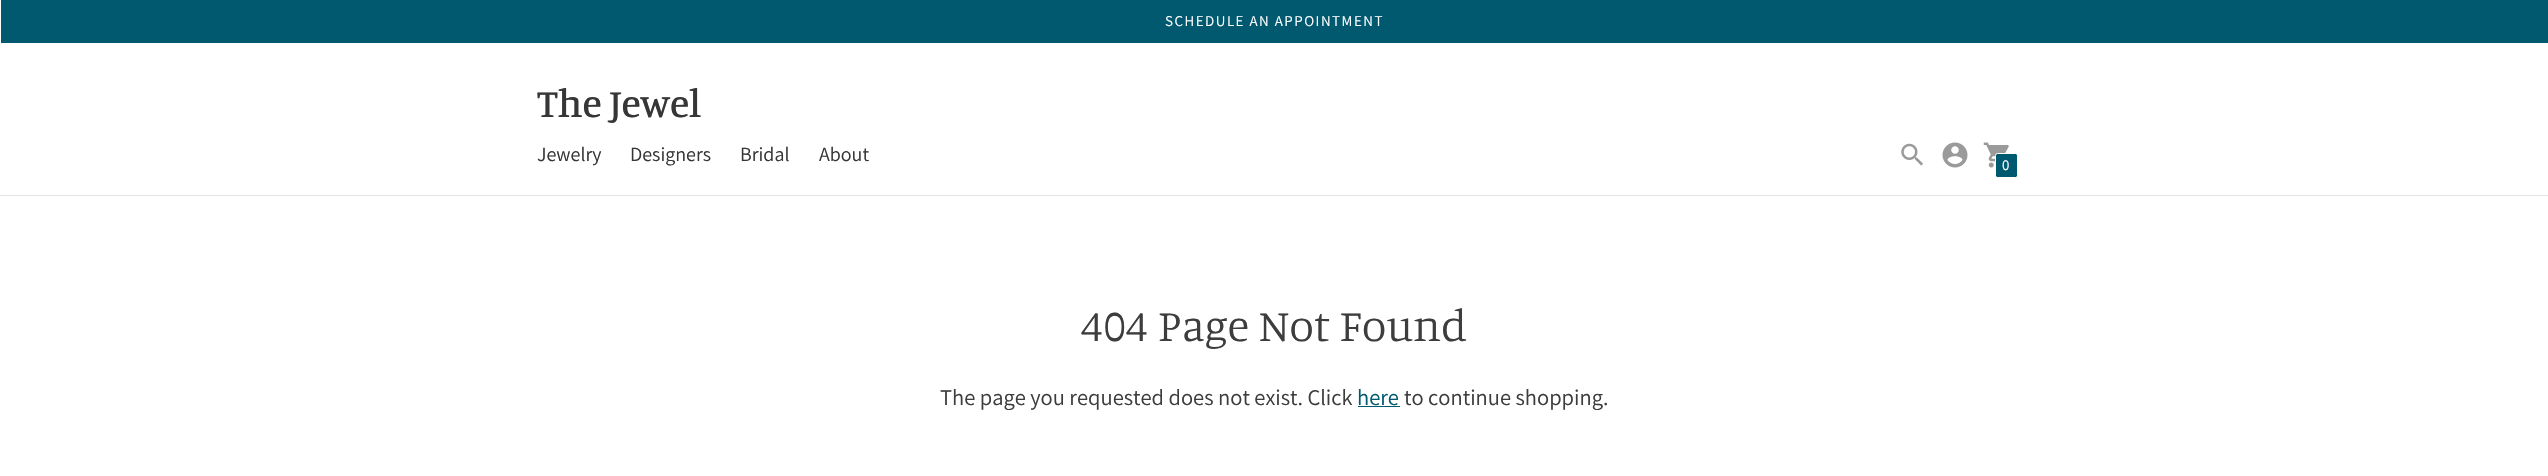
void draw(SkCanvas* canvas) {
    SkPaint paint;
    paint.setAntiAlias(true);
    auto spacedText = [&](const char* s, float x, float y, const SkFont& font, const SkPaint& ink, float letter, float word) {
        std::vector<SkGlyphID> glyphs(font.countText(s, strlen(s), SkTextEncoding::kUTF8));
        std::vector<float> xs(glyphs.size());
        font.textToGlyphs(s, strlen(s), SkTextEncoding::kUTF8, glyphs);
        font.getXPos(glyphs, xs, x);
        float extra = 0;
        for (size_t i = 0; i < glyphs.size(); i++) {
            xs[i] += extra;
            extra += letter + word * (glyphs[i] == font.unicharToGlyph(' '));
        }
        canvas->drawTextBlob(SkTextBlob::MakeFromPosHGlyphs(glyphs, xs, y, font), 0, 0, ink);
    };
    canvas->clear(0xFFFFFFFF);
    paint.setColor(0xFF00596F);
    canvas->drawRect(SkRect::MakeXYWH(1, 0, 2547, 43), paint);
    SkFont font1(fontMgr->matchFamilyStyle("Assistant", SkFontStyle::Normal()), 15);
    font1.setSubpixel(true);
    paint.setColor(0xFFFFFFFF);
    spacedText("SCHEDULE AN APPOINTMENT", 1165, 26, font1, paint, 1.5f, 0);
    paint.setColor(0xFFE2E2E2);
    canvas->drawRect(SkRect::MakeXYWH(0, 195, 2548, 1), paint);
    SkFont font2(fontMgr->matchFamilyStyle("Manuale", SkFontStyle(500, SkFontStyle::kNormal_Width, SkFontStyle::kUpright_Slant)), 40);
    font2.setSubpixel(true);
    paint.setColor(0xFF363636);
    canvas->drawString("The Jewel", 537, 117, font2, paint);
    SkFont font3(fontMgr->matchFamilyStyle("Assistant", SkFontStyle::Normal()), 20);
    font3.setSubpixel(true);
    canvas->drawString("Jewelry", 537, 161, font3, paint);
    canvas->drawString("Designers", 630, 161, font3, paint);
    canvas->drawString("Bridal", 740, 161, font3, paint);
    canvas->drawString("About", 819, 161, font3, paint);
    canvas->drawImageRect(SkImages::DeferredFromEncodedData(SkData::MakeFromFileName("img1.png")), SkRect::MakeXYWH(1901, 143, 22, 23), SkSamplingOptions());
    canvas->drawImageRect(SkImages::DeferredFromEncodedData(SkData::MakeFromFileName("img2.png")), SkRect::MakeXYWH(1942, 142, 26, 26), SkSamplingOptions());
    canvas->drawImageRect(SkImages::DeferredFromEncodedData(SkData::MakeFromFileName("img3.png")), SkRect::MakeXYWH(1983, 142, 26, 26), SkSamplingOptions());
    paint.setColor(0xFF00596F);
    canvas->drawRoundRect(SkRect::MakeXYWH(1995.5f, 153.5f, 22, 24), 2, 2, paint);
    paint.setStyle(SkPaint::kStroke_Style);
    paint.setStrokeWidth(1);
    paint.setColor(0xFFFFFFFF);
    canvas->drawRoundRect(SkRect::MakeXYWH(1995.5f, 153.5f, 22, 24), 2, 2, paint);
    paint.setStyle(SkPaint::kFill_Style);
    canvas->drawString("0", 2002, 170, font1, paint);
    SkFont font4(fontMgr->matchFamilyStyle("Manuale", SkFontStyle(300, SkFontStyle::kNormal_Width, SkFontStyle::kUpright_Slant)), 45);
    font4.setSubpixel(true);
    paint.setColor(0xFF3D3D3D);
    canvas->drawString("404 Page Not Found", 1081, 341, font4, paint);
    SkFont font5(fontMgr->matchFamilyStyle("Assistant", SkFontStyle::Normal()), 22.5f);
    font5.setSubpixel(true);
    canvas->drawString("The page you requested does not exist. Click", 940, 405, font5, paint);
    paint.setColor(0xFF00596F);
    canvas->drawString("here", 1357, 405, font5, paint);
    canvas->drawRect(SkRect::MakeXYWH(1358, 406, 42, 1), paint);
    paint.setColor(0xFF3D3D3D);
    canvas->drawString("to continue shopping.", 1404, 405, font5, paint);
}
